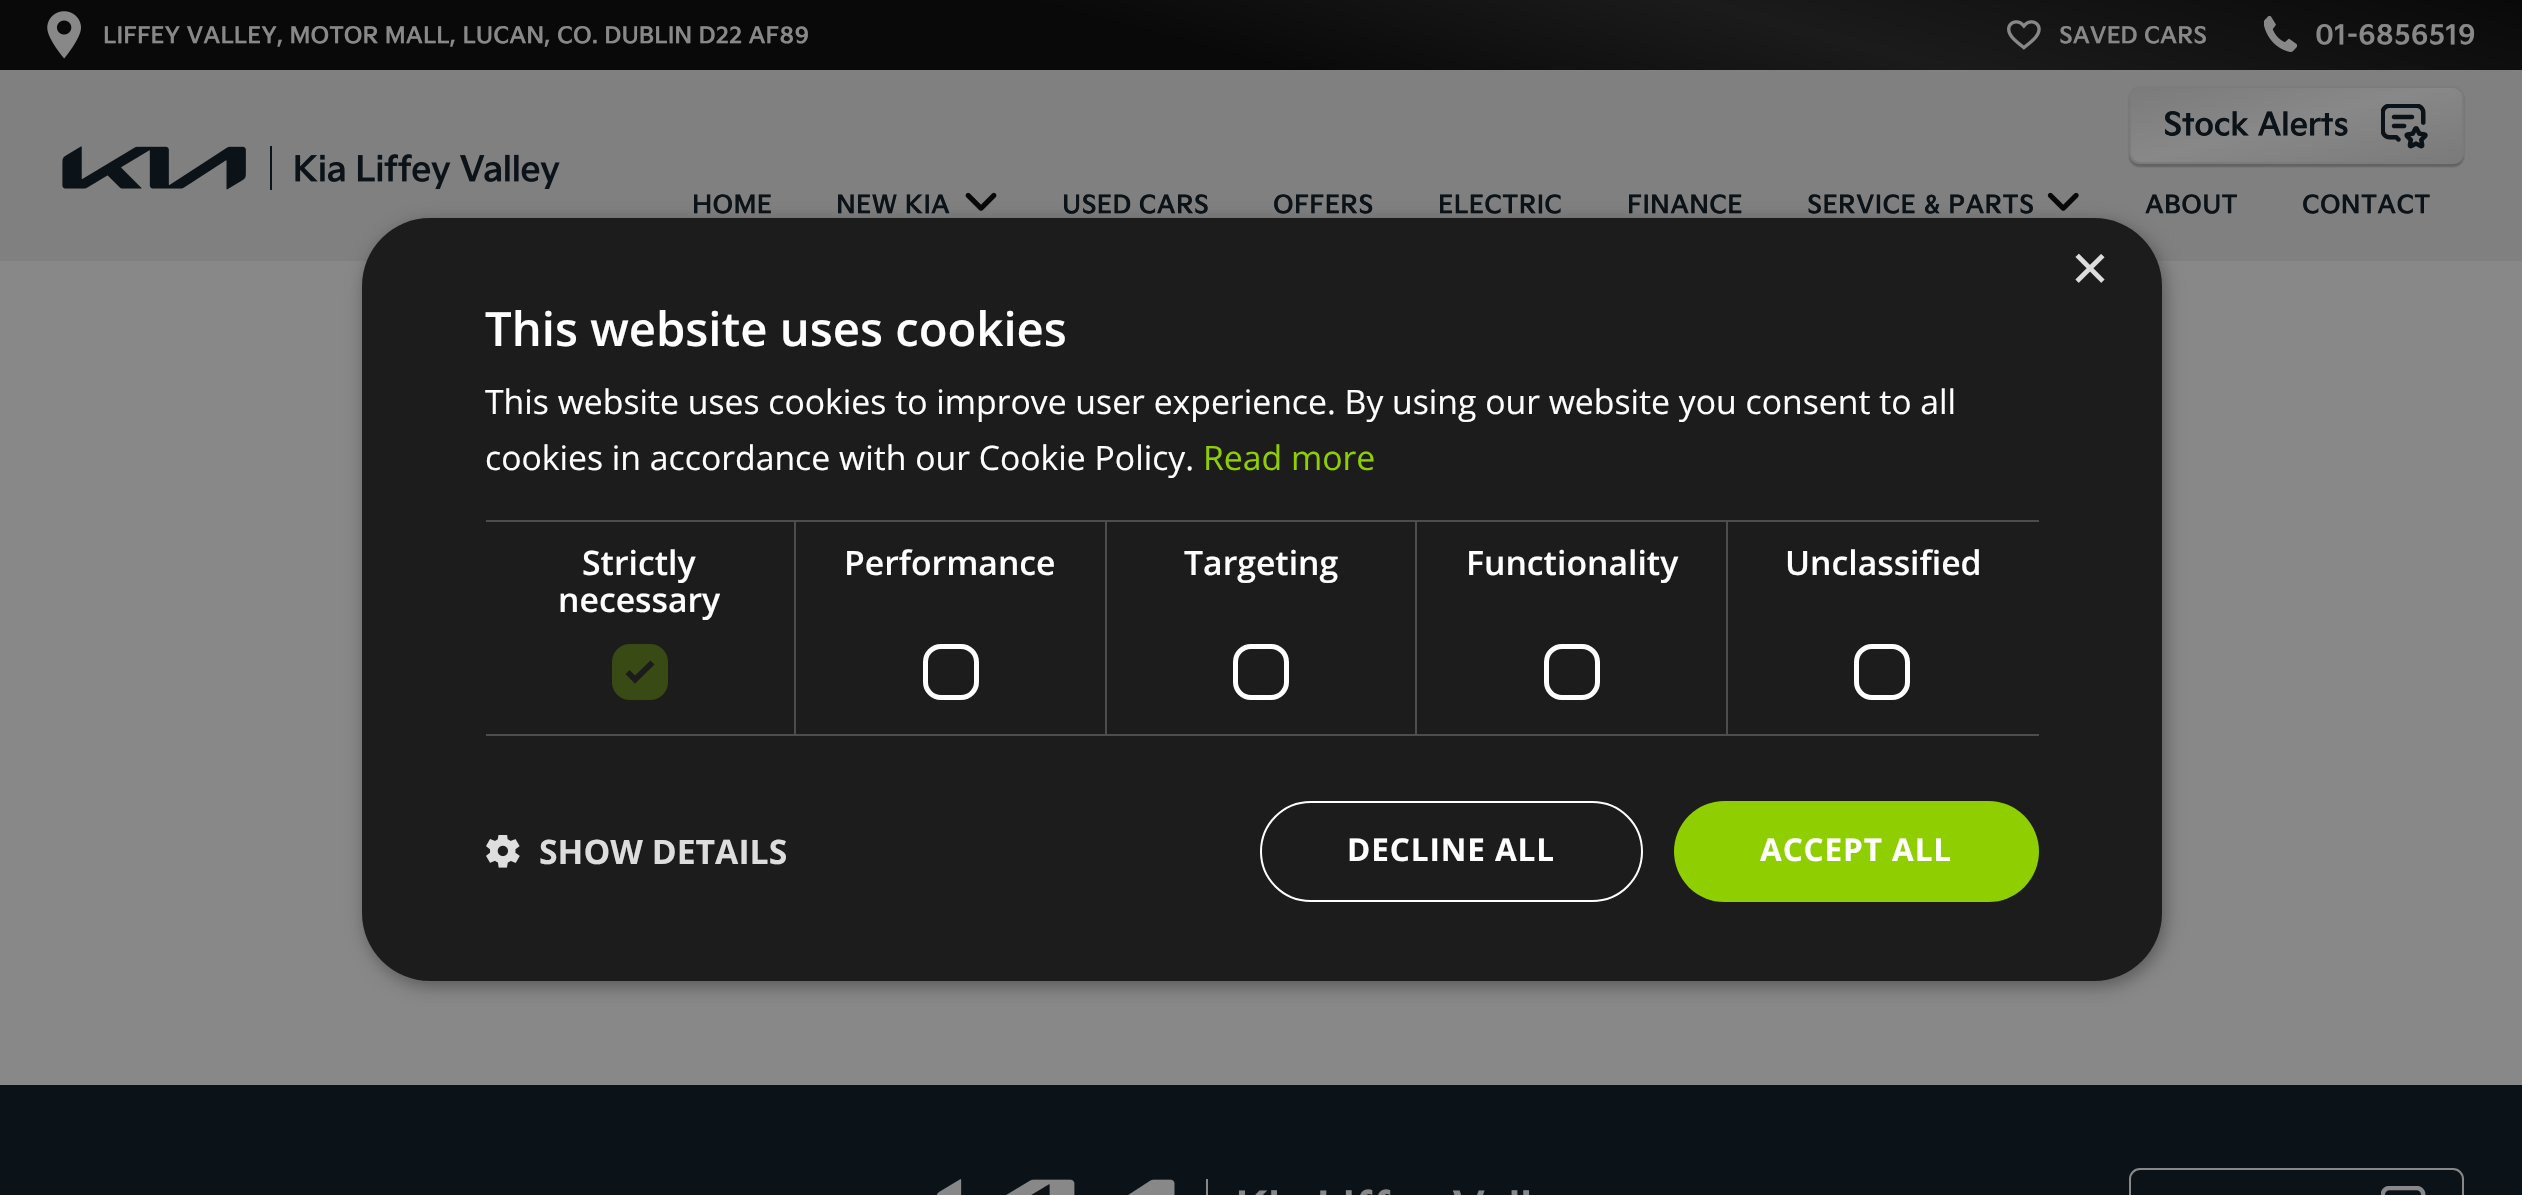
void draw(SkCanvas* canvas) {
    SkPaint paint;
    paint.setAntiAlias(true);
    auto spacedText = [&](const char* s, float x, float y, const SkFont& font, const SkPaint& ink, float letter, float word) {
        std::vector<SkGlyphID> glyphs(font.countText(s, strlen(s), SkTextEncoding::kUTF8));
        std::vector<float> xs(glyphs.size());
        font.textToGlyphs(s, strlen(s), SkTextEncoding::kUTF8, glyphs);
        font.getXPos(glyphs, xs, x);
        float extra = 0;
        for (size_t i = 0; i < glyphs.size(); i++) {
            xs[i] += extra;
            extra += letter + word * (glyphs[i] == font.unicharToGlyph(' '));
        }
        canvas->drawTextBlob(SkTextBlob::MakeFromPosHGlyphs(glyphs, xs, y, font), 0, 0, ink);
    };
    canvas->clear(0xFF888888);
    {
        const SkColor colors[] = {0xFF090909, 0xFF1B1B1B, 0xFF090909};
        const float stops[] = {0.46f, 0.7f, 1};
        const SkPoint ends[] = {{1168, 383}, {1354, -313}};
        paint.setShader(SkGradientShader::MakeLinear(ends, colors, stops, 3, SkTileMode::kClamp));
        paint.setAlpha(255);
    }
    canvas->drawRect(SkRect::MakeXYWH(0, 0, 2522, 70), paint);
    canvas->drawImageRect(SkImages::DeferredFromEncodedData(SkData::MakeFromFileName("img1.png")), SkRect::MakeXYWH(47, 11, 34, 48), SkSamplingOptions());
    SkFont font1(fontMgr->matchFamilyStyle("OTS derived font", SkFontStyle::Bold()), 22.5f);
    font1.setSubpixel(true);
    paint.setShader(nullptr);
    paint.setColor(0xFF888888);
    canvas->drawString("LIFFEY VALLEY, MOTOR MALL, LUCAN, CO. DUBLIN D22 AF89", 103, 43, font1, paint);
    canvas->drawImageRect(SkImages::DeferredFromEncodedData(SkData::MakeFromFileName("img2.png")), SkRect::MakeXYWH(2007, 20, 34, 30), SkSamplingOptions());
    canvas->drawString("SAVED CARS", 2059, 43, font1, paint);
    canvas->drawImageRect(SkImages::DeferredFromEncodedData(SkData::MakeFromFileName("img3.png")), SkRect::MakeXYWH(2264, 16, 33, 36), SkSamplingOptions());
    SkFont font2(fontMgr->matchFamilyStyle("OTS derived font", SkFontStyle::Bold()), 27);
    font2.setSubpixel(true);
    canvas->drawString("01-6856519", 2315, 44, font2, paint);
    paint.setColor(0xFF808080);
    canvas->drawRect(SkRect::MakeXYWH(0, 70, 2522, 191), paint);
    paint.setColor(0x40090909);
    paint.setMaskFilter(SkMaskFilter::MakeBlur(kNormal_SkBlurStyle, 1));
    canvas->drawRoundRect(SkRect::MakeXYWH(2129, 88, 335, 79), 11, 11, paint);
    paint.setMaskFilter(nullptr);
    canvas->save();
    canvas->clipPath(SkPathBuilder().moveTo(2140, 86).lineTo(2453, 86).cubicTo(2459, 86, 2464, 91, 2464, 97).lineTo(2464, 153).cubicTo(2464, 159, 2459, 164, 2453, 164).lineTo(2140, 164).cubicTo(2134, 164, 2129, 159, 2129, 153).lineTo(2129, 97).cubicTo(2129, 91, 2134, 86, 2140, 86).close().detach(), true);
    {
        const SkColor colors[] = {0xFF7B7B7B, 0xFF888888, 0xFF7B7B7B};
        const float stops[] = {0, 0.47f, 0.97f};
        const SkPoint ends[] = {{2278, 51}, {2315, 199}};
        paint.setShader(SkGradientShader::MakeLinear(ends, colors, stops, 3, SkTileMode::kClamp));
        paint.setAlpha(255);
    }
    canvas->drawRect(SkRect::MakeXYWH(2131, 88, 331, 74), paint);
    canvas->restore();
    paint.setStyle(SkPaint::kStroke_Style);
    paint.setStrokeWidth(2);
    paint.setShader(nullptr);
    paint.setColor(0xFF7B7B7B);
    canvas->drawRoundRect(SkRect::MakeXYWH(2130, 87, 333, 76), 10, 10, paint);
    SkFont font3(fontMgr->matchFamilyStyle("OTS derived font", SkFontStyle::Bold()), 31.5f);
    font3.setSubpixel(true);
    paint.setStyle(SkPaint::kFill_Style);
    paint.setColor(0xFF0B1318);
    spacedText("Stock Alerts", 2163, 135, font3, paint, -0.25f, 0);
    canvas->drawImageRect(SkImages::DeferredFromEncodedData(SkData::MakeFromFileName("img4.png")), SkRect::MakeXYWH(2381, 104, 47, 45), SkSamplingOptions());
    canvas->drawImageRect(SkImages::DeferredFromEncodedData(SkData::MakeFromFileName("img5.png")), SkRect::MakeXYWH(62, 146, 498, 44), SkSamplingOptions());
    SkFont font4(fontMgr->matchFamilyStyle("OTS derived font", SkFontStyle::Bold()), 24.75f);
    font4.setSubpixel(true);
    spacedText("HOME", 692, 213, font4, paint, 0.3f, 0);
    spacedText("NEW KIA", 836, 213, font4, paint, 0.3f, 0);
    canvas->drawImageRect(SkImages::DeferredFromEncodedData(SkData::MakeFromFileName("img6.png")), SkRect::MakeXYWH(965, 192, 32, 19), SkSamplingOptions());
    spacedText("USED CARS", 1062, 213, font4, paint, 0.3f, 0);
    spacedText("OFFERS", 1273, 213, font4, paint, 0.3f, 0);
    spacedText("ELECTRIC", 1438, 213, font4, paint, 0.3f, 0);
    spacedText("FINANCE", 1627, 213, font4, paint, 0.3f, 0);
    spacedText("SERVICE & PARTS", 1807, 213, font4, paint, 0.3f, 0);
    canvas->drawImageRect(SkImages::DeferredFromEncodedData(SkData::MakeFromFileName("img7.png")), SkRect::MakeXYWH(2047, 192, 32, 19), SkSamplingOptions());
    spacedText("ABOUT", 2145, 213, font4, paint, 0.3f, 0);
    spacedText("CONTACT", 2302, 213, font4, paint, 0.3f, 0);
    paint.setColor(0x59000000);
    paint.setMaskFilter(SkMaskFilter::MakeBlur(kNormal_SkBlurStyle, 9));
    canvas->drawRoundRect(SkRect::MakeXYWH(365, 223, 1800, 763), 68, 68, paint);
    paint.setMaskFilter(nullptr);
    paint.setColor(0xFF1C1C1C);
    canvas->drawRoundRect(SkRect::MakeXYWH(362, 218, 1800, 763), 68, 68, paint);
    SkFont font5(fontMgr->matchFamilyStyle("Liberation Sans", SkFontStyle::Normal()), 65);
    font5.setSubpixel(true);
    paint.setColor(0xFFDDDDDD);
    canvas->drawString("×", 2071, 290, font5, paint);
    SkFont font6(fontMgr->matchFamilyStyle("Open Sans", SkFontStyle(600, SkFontStyle::kNormal_Width, SkFontStyle::kUpright_Slant)), 47.25f);
    font6.setSubpixel(true);
    paint.setColor(0xFFFFFFFF);
    canvas->drawString("This website uses cookies", 485, 346, font6, paint);
    SkFont font7(fontMgr->matchFamilyStyle("Open Sans", SkFontStyle::Normal()), 33.75f);
    font7.setSubpixel(true);
    canvas->drawString("This website uses cookies to improve user experience. By using our website you consent to all", 485, 414, font7, paint);
    canvas->drawString("cookies in accordance with our Cookie Policy.", 485, 470, font7, paint);
    paint.setColor(0xFF8FCE00);
    canvas->drawString("Read more", 1203, 470, font7, paint);
    paint.setColor(0xFF4D4D4D);
    canvas->drawRect(SkRect::MakeXYWH(486, 520, 1553, 2), paint);
    canvas->drawRect(SkRect::MakeXYWH(794, 520, 2, 216), paint);
    canvas->drawRect(SkRect::MakeXYWH(486, 734, 311, 2), paint);
    SkFont font8(fontMgr->matchFamilyStyle("Open Sans", SkFontStyle(600, SkFontStyle::kNormal_Width, SkFontStyle::kUpright_Slant)), 33.75f);
    font8.setSubpixel(true);
    paint.setColor(0xFFFFFFFF);
    canvas->drawString("Strictly", 582, 575, font8, paint);
    canvas->drawString("necessary", 558, 612, font8, paint);
    paint.setColor(0xFF3A4A15);
    canvas->drawRoundRect(SkRect::MakeXYWH(612, 644, 56, 56), 18, 18, paint);
    paint.setStyle(SkPaint::kStroke_Style);
    paint.setStrokeWidth(5.9f);
    paint.setColor(0xFF1C1C1C);
    canvas->drawPath(SkPathBuilder().moveTo(627.5f, 672).lineTo(635, 679.5f).lineTo(652.5f, 662.5f).detach(), paint);
    paint.setStyle(SkPaint::kFill_Style);
    paint.setColor(0xFF4D4D4D);
    canvas->drawRect(SkRect::MakeXYWH(1105, 520, 2, 216), paint);
    canvas->drawRect(SkRect::MakeXYWH(797, 734, 310, 2), paint);
    paint.setColor(0xFFFFFFFF);
    canvas->drawString("Performance", 844, 575, font8, paint);
    paint.setStyle(SkPaint::kStroke_Style);
    paint.setStrokeWidth(5);
    canvas->drawRoundRect(SkRect::MakeXYWH(925.5f, 646.5f, 51, 51), 15.5f, 15.5f, paint);
    paint.setStyle(SkPaint::kFill_Style);
    paint.setColor(0xFF4D4D4D);
    canvas->drawRect(SkRect::MakeXYWH(1415, 520, 2, 216), paint);
    canvas->drawRect(SkRect::MakeXYWH(1107, 734, 311, 2), paint);
    paint.setColor(0xFFFFFFFF);
    canvas->drawString("Targeting", 1184, 575, font8, paint);
    paint.setStyle(SkPaint::kStroke_Style);
    canvas->drawRoundRect(SkRect::MakeXYWH(1235.5f, 646.5f, 51, 51), 15.5f, 15.5f, paint);
    paint.setStyle(SkPaint::kFill_Style);
    paint.setColor(0xFF4D4D4D);
    canvas->drawRect(SkRect::MakeXYWH(1726, 520, 2, 216), paint);
    canvas->drawRect(SkRect::MakeXYWH(1418, 734, 621, 2), paint);
    paint.setColor(0xFFFFFFFF);
    canvas->drawString("Functionality", 1466, 575, font8, paint);
    paint.setStyle(SkPaint::kStroke_Style);
    canvas->drawRoundRect(SkRect::MakeXYWH(1546.5f, 646.5f, 51, 51), 15.5f, 15.5f, paint);
    paint.setStyle(SkPaint::kFill_Style);
    canvas->drawString("Unclassified", 1785, 575, font8, paint);
    paint.setStyle(SkPaint::kStroke_Style);
    canvas->drawRoundRect(SkRect::MakeXYWH(1856.5f, 646.5f, 51, 51), 15.5f, 15.5f, paint);
    canvas->drawImageRect(SkImages::DeferredFromEncodedData(SkData::MakeFromFileName("img8.png")), SkRect::MakeXYWH(486, 835, 34, 33), SkSamplingOptions());
    SkFont font9(fontMgr->matchFamilyStyle("Open Sans", SkFontStyle::Bold()), 33.75f);
    font9.setSubpixel(true);
    paint.setStyle(SkPaint::kFill_Style);
    paint.setColor(0xFFDDDDDD);
    canvas->drawString("SHOW DETAILS", 539, 864, font9, paint);
    paint.setStyle(SkPaint::kStroke_Style);
    paint.setStrokeWidth(2);
    paint.setColor(0xFFFFFFFF);
    canvas->drawRoundRect(SkRect::MakeXYWH(1261, 802, 381, 99), 49.5f, 49.5f, paint);
    SkFont font10(fontMgr->matchFamilyStyle("Open Sans", SkFontStyle::Bold()), 31.5f);
    font10.setSubpixel(true);
    paint.setStyle(SkPaint::kFill_Style);
    spacedText("DECLINE ALL", 1347, 861, font10, paint, 0.9f, 0);
    paint.setColor(0xFF8FCE00);
    canvas->drawRoundRect(SkRect::MakeXYWH(1674, 801, 365, 101), 50.5f, 50.5f, paint);
    paint.setColor(0xFFFFFFFF);
    spacedText("ACCEPT ALL", 1760, 861, font10, paint, 0.9f, 0);
    paint.setColor(0xFF0B1318);
    canvas->drawRect(SkRect::MakeXYWH(0, 1085, 2522, 110), paint);
    canvas->drawImageRect(SkImages::DeferredFromEncodedData(SkData::MakeFromFileName("img9.png")), SkRect::MakeXYWH(936, 1179, 594, 16), SkSamplingOptions());
    paint.setStyle(SkPaint::kStroke_Style);
    paint.setColor(0xFF888888);
    canvas->drawRoundRect(SkRect::MakeXYWH(2130, 1169, 333, 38), 10, 10, paint);
    canvas->drawImageRect(SkImages::DeferredFromEncodedData(SkData::MakeFromFileName("img10.png")), SkRect::MakeXYWH(2381, 1186, 45, 9), SkSamplingOptions());
}
